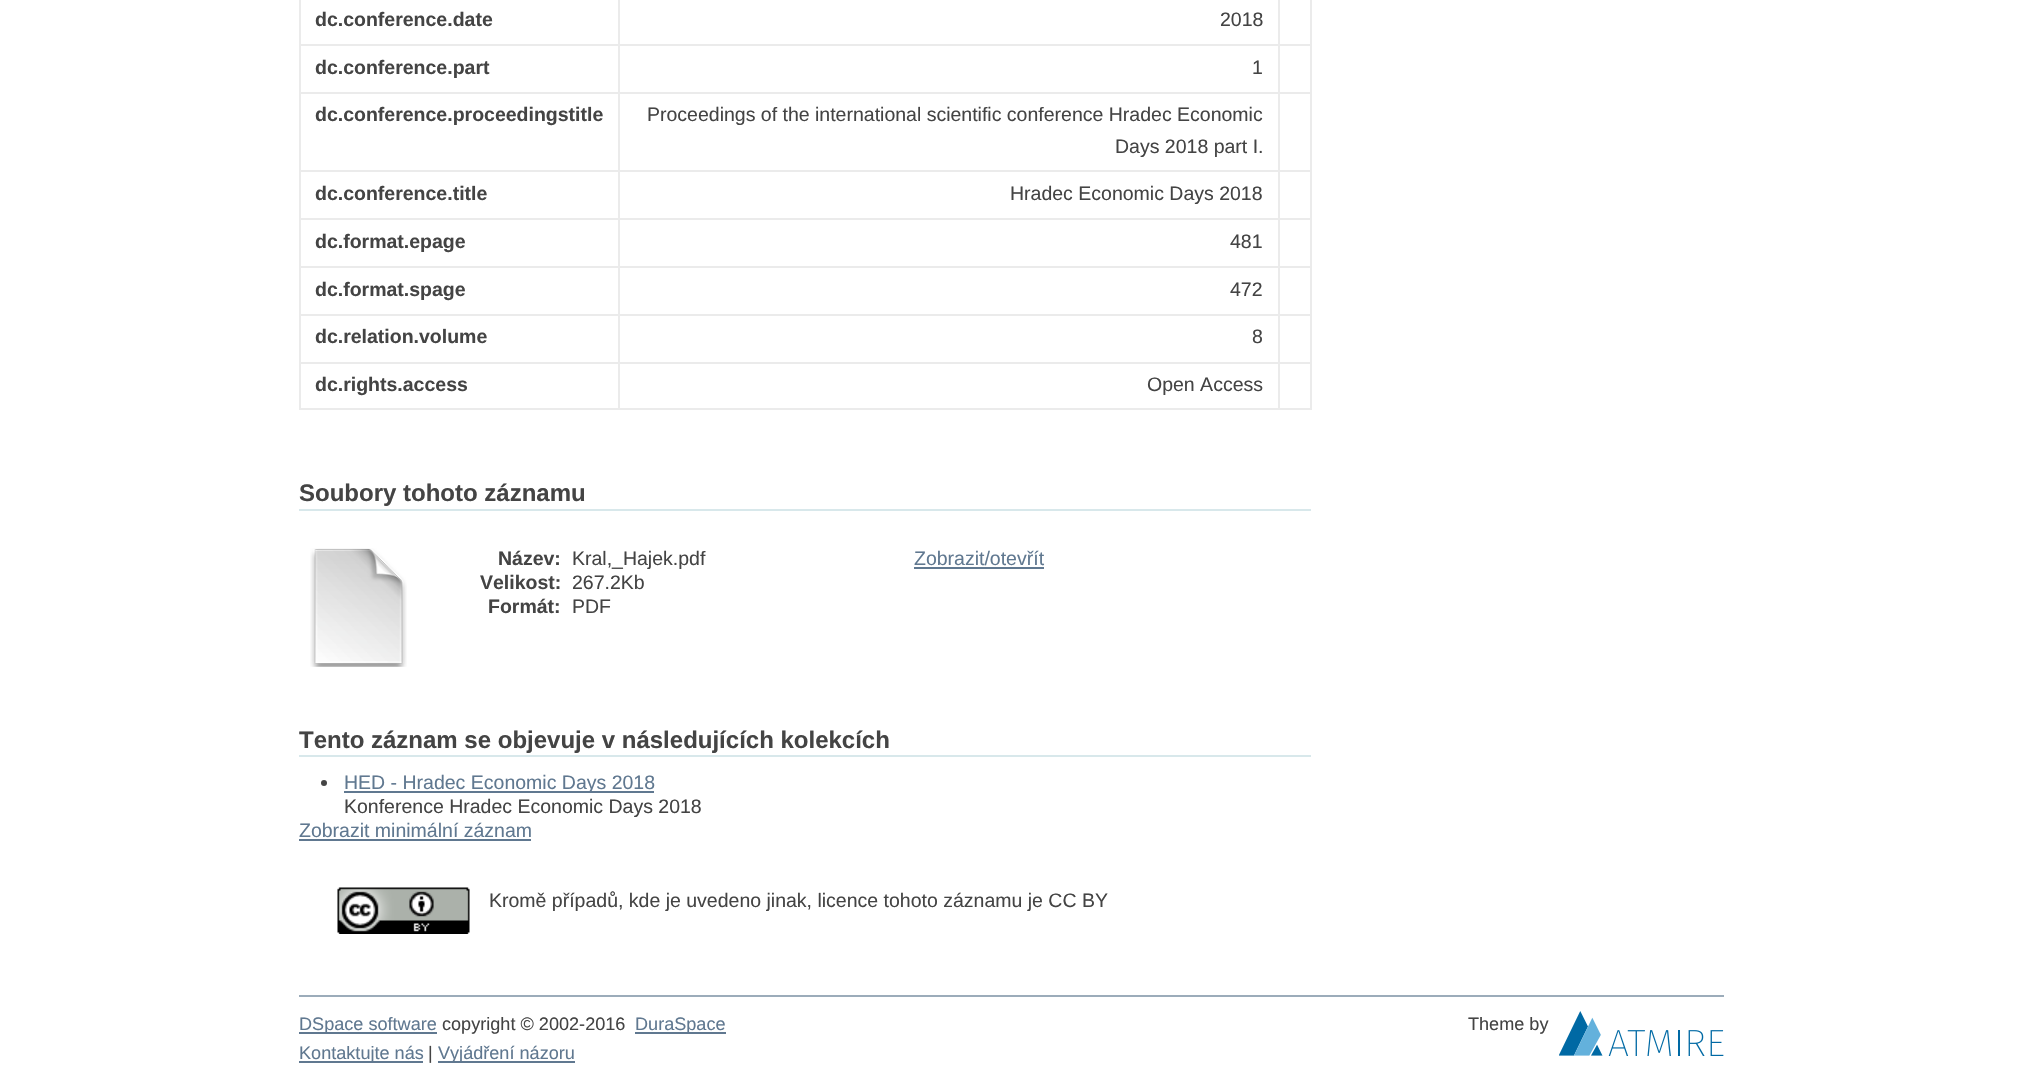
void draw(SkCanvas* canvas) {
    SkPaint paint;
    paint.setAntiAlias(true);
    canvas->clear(0xFFFFFFFF);
    SkFont font1(fontMgr->matchFamilyStyle("Liberation Sans", SkFontStyle::Bold()), 19.5f);
    font1.setSubpixel(true);
    paint.setColor(0xFF444444);
    canvas->drawString("dc.conference.date", 315, 26, font1, paint);
    SkFont font2(fontMgr->matchFamilyStyle("Liberation Sans", SkFontStyle::Normal()), 19.5f);
    font2.setSubpixel(true);
    canvas->drawString("2018", 1220, 26, font2, paint);
    paint.setColor(0xFFEBEBEB);
    canvas->drawRect(SkRect::MakeXYWH(299, 44, 1012, 2), paint);
    canvas->drawRect(SkRect::MakeXYWH(299, 92, 1012, 2), paint);
    canvas->drawRect(SkRect::MakeXYWH(299, 170, 1012, 2), paint);
    canvas->drawRect(SkRect::MakeXYWH(299, 218, 1012, 2), paint);
    canvas->drawRect(SkRect::MakeXYWH(299, 266, 1012, 2), paint);
    canvas->drawRect(SkRect::MakeXYWH(299, 314, 1012, 2), paint);
    canvas->drawRect(SkRect::MakeXYWH(299, 362, 1012, 2), paint);
    canvas->drawRect(SkRect::MakeXYWH(1310, 362, 2, 48), paint);
    canvas->drawRect(SkRect::MakeXYWH(1310, 314, 2, 49), paint);
    canvas->drawRect(SkRect::MakeXYWH(1310, 266, 2, 49), paint);
    canvas->drawRect(SkRect::MakeXYWH(1310, 218, 2, 49), paint);
    canvas->drawRect(SkRect::MakeXYWH(1310, 170, 2, 49), paint);
    canvas->drawRect(SkRect::MakeXYWH(1310, 92, 2, 79), paint);
    canvas->drawRect(SkRect::MakeXYWH(1310, 0, 2, 93), paint);
    canvas->drawRect(SkRect::MakeXYWH(299, 408, 1012, 2), paint);
    canvas->drawRect(SkRect::MakeXYWH(299, 362, 2, 48), paint);
    canvas->drawRect(SkRect::MakeXYWH(299, 314, 2, 49), paint);
    canvas->drawRect(SkRect::MakeXYWH(299, 266, 2, 49), paint);
    canvas->drawRect(SkRect::MakeXYWH(299, 218, 2, 49), paint);
    canvas->drawRect(SkRect::MakeXYWH(299, 170, 2, 49), paint);
    canvas->drawRect(SkRect::MakeXYWH(299, 92, 2, 79), paint);
    canvas->drawRect(SkRect::MakeXYWH(299, 0, 2, 93), paint);
    paint.setColor(0xFF444444);
    canvas->drawString("dc.conference.part", 315, 74, font1, paint);
    canvas->drawString("1", 1252, 74, font2, paint);
    canvas->drawString("dc.conference.proceedingstitle", 315, 121, font1, paint);
    canvas->drawString("Proceedings of the international scientific conference Hradec Economic", 647, 121, font2, paint);
    canvas->drawString("Days 2018 part I.", 1115, 153, font2, paint);
    canvas->drawString("dc.conference.title", 315, 200, font1, paint);
    canvas->drawString("Hradec Economic Days 2018", 1010, 200, font2, paint);
    canvas->drawString("dc.format.epage", 315, 248, font1, paint);
    canvas->drawString("481", 1230, 248, font2, paint);
    canvas->drawString("dc.format.spage", 315, 296, font1, paint);
    canvas->drawString("472", 1230, 296, font2, paint);
    canvas->drawString("dc.relation.volume", 315, 343, font1, paint);
    canvas->drawString("8", 1252, 343, font2, paint);
    canvas->drawString("dc.rights.access", 315, 391, font1, paint);
    paint.setColor(0xFFEBEBEB);
    canvas->drawRect(SkRect::MakeXYWH(618, 0, 2, 410), paint);
    paint.setColor(0xFF444444);
    canvas->drawString("Open Access", 1147, 391, font2, paint);
    paint.setColor(0xFFEBEBEB);
    canvas->drawRect(SkRect::MakeXYWH(1278, 0, 2, 410), paint);
    paint.setColor(0xFFD8E8EB);
    canvas->drawRect(SkRect::MakeXYWH(299, 509, 1012, 2), paint);
    SkFont font3(fontMgr->matchFamilyStyle("Liberation Sans", SkFontStyle::Bold()), 24);
    font3.setSubpixel(true);
    paint.setColor(0xFF444444);
    canvas->drawString("Soubory tohoto záznamu", 299, 501, font3, paint);
    canvas->drawImageRect(SkImages::DeferredFromEncodedData(SkData::MakeFromFileName("img1.png")), SkRect::MakeXYWH(310, 548, 97, 119), SkSamplingOptions());
    canvas->drawString("Název:", 498, 565, font1, paint);
    canvas->drawString("Kral,_Hajek.pdf", 572, 565, font2, paint);
    canvas->drawString("Velikost:", 480, 589, font1, paint);
    canvas->drawString("267.2Kb", 572, 589, font2, paint);
    canvas->drawString("Formát:", 488, 613, font1, paint);
    canvas->drawString("PDF", 572, 613, font2, paint);
    paint.setColor(0xFF607890);
    canvas->drawString("Zobrazit/otevřít", 914, 565, font2, paint);
    canvas->drawRect(SkRect::MakeXYWH(914, 567, 130, 2), paint);
    paint.setColor(0xFFD8E8EB);
    canvas->drawRect(SkRect::MakeXYWH(299, 755, 1012, 2), paint);
    paint.setColor(0xFF444444);
    canvas->drawString("Tento záznam se objevuje v následujících kolekcích", 299, 748, font3, paint);
    canvas->drawCircle(324, 783, 3, paint);
    paint.setColor(0xFF607890);
    canvas->drawRect(SkRect::MakeXYWH(344, 791, 310, 2), paint);
    canvas->drawString("HED - Hradec Economic Days 2018", 344, 789, font2, paint);
    paint.setColor(0xFF444444);
    canvas->drawString("Konference Hradec Economic Days 2018", 344, 813, font2, paint);
    paint.setColor(0xFF607890);
    canvas->drawString("Zobrazit minimální záznam", 299, 837, font2, paint);
    canvas->drawRect(SkRect::MakeXYWH(299, 839, 232, 2), paint);
    canvas->drawImageRect(SkImages::DeferredFromEncodedData(SkData::MakeFromFileName("img2.png")), SkRect::MakeXYWH(337, 887, 133, 47), SkSamplingOptions());
    paint.setColor(0xFF444444);
    canvas->drawString("Kromě případů, kde je uvedeno jinak, licence tohoto záznamu je CC BY", 489, 907, font2, paint);
    paint.setColor(0xFF9CACBA);
    canvas->drawRect(SkRect::MakeXYWH(299, 995, 1425, 2), paint);
    paint.setColor(0xFF607890);
    canvas->drawRect(SkRect::MakeXYWH(299, 1032, 138, 2), paint);
    SkFont font4(fontMgr->matchFamilyStyle("Liberation Sans", SkFontStyle::Normal()), 18.1f);
    font4.setSubpixel(true);
    canvas->drawString("DSpace software", 299, 1030, font4, paint);
    paint.setColor(0xFF444444);
    canvas->drawString("copyright © 2002-2016", 442, 1030, font4, paint);
    paint.setColor(0xFF607890);
    canvas->drawRect(SkRect::MakeXYWH(635, 1032, 91, 2), paint);
    canvas->drawString("DuraSpace", 635, 1030, font4, paint);
    paint.setColor(0xFF444444);
    canvas->drawString("Theme by", 1468, 1030, font4, paint);
    canvas->drawImageRect(SkImages::DeferredFromEncodedData(SkData::MakeFromFileName("img3.png")), SkRect::MakeXYWH(1559, 1011, 165, 45), SkSamplingOptions());
    paint.setColor(0xFF607890);
    canvas->drawRect(SkRect::MakeXYWH(299, 1061, 124, 2), paint);
    canvas->drawString("Kontaktujte nás", 299, 1059, font4, paint);
    paint.setColor(0xFF444444);
    canvas->drawString("|", 428, 1059, font4, paint);
    paint.setColor(0xFF607890);
    canvas->drawRect(SkRect::MakeXYWH(438, 1061, 137, 2), paint);
    canvas->drawString("Vyjádření názoru", 438, 1059, font4, paint);
}
